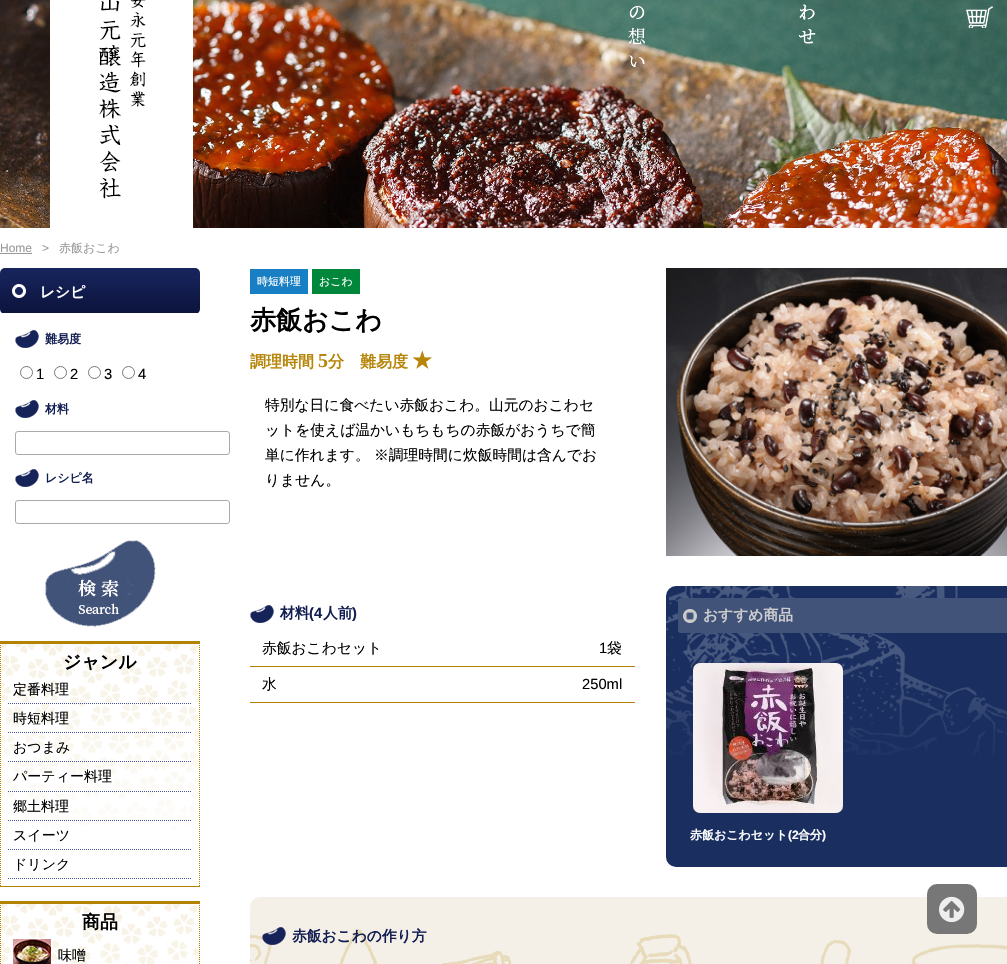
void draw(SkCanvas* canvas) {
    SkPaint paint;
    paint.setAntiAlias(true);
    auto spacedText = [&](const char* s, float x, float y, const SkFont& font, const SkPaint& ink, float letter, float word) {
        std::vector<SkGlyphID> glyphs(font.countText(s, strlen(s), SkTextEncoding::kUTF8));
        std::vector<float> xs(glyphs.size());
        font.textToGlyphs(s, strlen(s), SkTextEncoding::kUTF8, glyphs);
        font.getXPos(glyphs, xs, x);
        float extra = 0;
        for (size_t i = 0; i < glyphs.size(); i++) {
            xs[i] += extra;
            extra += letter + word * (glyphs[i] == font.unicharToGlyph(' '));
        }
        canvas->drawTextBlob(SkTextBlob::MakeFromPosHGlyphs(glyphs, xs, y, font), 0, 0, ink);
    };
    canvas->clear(0xFFFFFFFF);
    canvas->drawImageRect(SkImages::DeferredFromEncodedData(SkData::MakeFromFileName("img1.png")), SkRect::MakeXYWH(0, 0, 1007, 228), SkSamplingOptions());
    canvas->drawImageRect(SkImages::DeferredFromEncodedData(SkData::MakeFromFileName("img2.png")), SkRect::MakeXYWH(50, 0, 143, 228), SkSamplingOptions());
    canvas->drawImageRect(SkImages::DeferredFromEncodedData(SkData::MakeFromFileName("img3.png")), SkRect::MakeXYWH(628, 6, 17, 62), SkSamplingOptions());
    canvas->drawImageRect(SkImages::DeferredFromEncodedData(SkData::MakeFromFileName("img4.png")), SkRect::MakeXYWH(799, 4, 17, 40), SkSamplingOptions());
    canvas->drawImageRect(SkImages::DeferredFromEncodedData(SkData::MakeFromFileName("img5.png")), SkRect::MakeXYWH(966, 6, 27, 22), SkSamplingOptions());
    SkFont font1(fontMgr->matchFamilyStyle("Liberation Sans", SkFontStyle::Normal()), 12);
    font1.setSubpixel(true);
    paint.setColor(0xFF999999);
    canvas->drawString("Home", 0, 252, font1, paint);
    canvas->drawRect(SkRect::MakeXYWH(0, 253, 32, 1), paint);
    spacedText(">", 42, 252, font1, paint, 10, 0);
    SkFont font2(fontMgr->matchFamilyStyle("WenQuanYi Zen Hei", SkFontStyle(500, SkFontStyle::kNormal_Width, SkFontStyle::kUpright_Slant)), 12);
    font2.setSubpixel(true);
    canvas->drawString("赤飯おこわ", 59, 252, font2, paint);
    canvas->drawImageRect(SkImages::DeferredFromEncodedData(SkData::MakeFromFileName("img6.png")), SkRect::MakeXYWH(0, 268, 200, 45), SkSamplingOptions());
    SkFont font3(fontMgr->matchFamilyStyle("WenQuanYi Zen Hei", SkFontStyle::Bold()), 14.75f);
    font3.setSubpixel(true);
    paint.setColor(0xFFFFFFFF);
    canvas->drawString("レシピ", 40, 297, font3, paint);
    canvas->drawImageRect(SkImages::DeferredFromEncodedData(SkData::MakeFromFileName("img7.png")), SkRect::MakeXYWH(15, 330, 24, 18), SkSamplingOptions());
    SkFont font4(fontMgr->matchFamilyStyle("WenQuanYi Zen Hei", SkFontStyle::Bold()), 12);
    font4.setSubpixel(true);
    paint.setColor(0xFF131F52);
    canvas->drawString("難易度", 45, 343, font4, paint);
    paint.setStyle(SkPaint::kStroke_Style);
    paint.setStrokeWidth(1);
    paint.setColor(0xFF767676);
    canvas->drawCircle(26.5f, 372.5f, 6, paint);
    SkFont font5(fontMgr->matchFamilyStyle("Liberation Sans", SkFontStyle::Normal()), 14.75f);
    font5.setSubpixel(true);
    paint.setStyle(SkPaint::kFill_Style);
    paint.setColor(0xFF000000);
    canvas->drawString("1", 36, 379, font5, paint);
    paint.setStyle(SkPaint::kStroke_Style);
    paint.setColor(0xFF767676);
    canvas->drawCircle(60.5f, 372.5f, 6, paint);
    paint.setStyle(SkPaint::kFill_Style);
    paint.setColor(0xFF000000);
    canvas->drawString("2", 70, 379, font5, paint);
    paint.setStyle(SkPaint::kStroke_Style);
    paint.setColor(0xFF767676);
    canvas->drawCircle(94.5f, 372.5f, 6, paint);
    paint.setStyle(SkPaint::kFill_Style);
    paint.setColor(0xFF000000);
    canvas->drawString("3", 104, 379, font5, paint);
    paint.setStyle(SkPaint::kStroke_Style);
    paint.setColor(0xFF767676);
    canvas->drawCircle(128.5f, 372.5f, 6, paint);
    paint.setStyle(SkPaint::kFill_Style);
    paint.setColor(0xFF000000);
    canvas->drawString("4", 138, 379, font5, paint);
    canvas->drawImageRect(SkImages::DeferredFromEncodedData(SkData::MakeFromFileName("img7.png")), SkRect::MakeXYWH(15, 400, 24, 18), SkSamplingOptions());
    paint.setColor(0xFF131F52);
    canvas->drawString("材料", 45, 413, font4, paint);
    paint.setStyle(SkPaint::kStroke_Style);
    paint.setColor(0xFFAAAAAA);
    canvas->drawRoundRect(SkRect::MakeXYWH(15.5f, 431.5f, 214, 23), 2.5f, 2.5f, paint);
    canvas->drawImageRect(SkImages::DeferredFromEncodedData(SkData::MakeFromFileName("img7.png")), SkRect::MakeXYWH(15, 469, 24, 18), SkSamplingOptions());
    paint.setStyle(SkPaint::kFill_Style);
    paint.setColor(0xFF131F52);
    canvas->drawString("レシピ名", 45, 482, font4, paint);
    paint.setStyle(SkPaint::kStroke_Style);
    paint.setColor(0xFFAAAAAA);
    canvas->drawRoundRect(SkRect::MakeXYWH(15.5f, 500.5f, 214, 23), 2.5f, 2.5f, paint);
    canvas->drawImageRect(SkImages::DeferredFromEncodedData(SkData::MakeFromFileName("img8.png")), SkRect::MakeXYWH(44, 540, 112, 87), SkSamplingOptions());
    canvas->drawImageRect(SkImages::DeferredFromEncodedData(SkData::MakeFromFileName("img9.png")), SkRect::MakeXYWH(1, 644, 199, 185), SkSamplingOptions());
    paint.setStyle(SkPaint::kFill_Style);
    paint.setColor(0xFFB38300);
    canvas->drawRect(SkRect::MakeXYWH(0, 641, 200, 3), paint);
    paint.setStyle(SkPaint::kStroke_Style);
    paint.setPathEffect(SkDashPathEffect::Make({{1, 1}}, 0));
    canvas->drawPath(SkPathBuilder().moveTo(199.5f, 641).lineTo(199.5f, 887).detach(), paint);
    paint.setPathEffect(nullptr);
    paint.setStyle(SkPaint::kFill_Style);
    canvas->drawRect(SkRect::MakeXYWH(0, 886, 200, 1), paint);
    paint.setStyle(SkPaint::kStroke_Style);
    paint.setPathEffect(SkDashPathEffect::Make({{1, 1}}, 0));
    canvas->drawPath(SkPathBuilder().moveTo(0.5f, 641).lineTo(0.5f, 887).detach(), paint);
    paint.setPathEffect(nullptr);
    SkFont font6(fontMgr->matchFamilyStyle("WenQuanYi Zen Hei", SkFontStyle::Bold()), 18);
    font6.setSubpixel(true);
    paint.setStyle(SkPaint::kFill_Style);
    paint.setColor(0xFF000000);
    canvas->drawString("ジャンル", 63, 668, font6, paint);
    paint.setStyle(SkPaint::kStroke_Style);
    paint.setColor(0xFF46539A);
    paint.setPathEffect(SkDashPathEffect::Make({{1, 1}}, 0));
    canvas->drawPath(SkPathBuilder().moveTo(8, 703.5f).lineTo(192, 703.5f).detach(), paint);
    paint.setPathEffect(nullptr);
    SkFont font7(fontMgr->matchFamilyStyle("WenQuanYi Zen Hei", SkFontStyle(500, SkFontStyle::kNormal_Width, SkFontStyle::kUpright_Slant)), 14);
    font7.setSubpixel(true);
    paint.setStyle(SkPaint::kFill_Style);
    paint.setColor(0xFF000000);
    canvas->drawString("定番料理", 13, 694, font7, paint);
    paint.setStyle(SkPaint::kStroke_Style);
    paint.setColor(0xFF46539A);
    paint.setPathEffect(SkDashPathEffect::Make({{1, 1}}, 0));
    canvas->drawPath(SkPathBuilder().moveTo(8, 732.5f).lineTo(192, 732.5f).detach(), paint);
    paint.setPathEffect(nullptr);
    paint.setStyle(SkPaint::kFill_Style);
    paint.setColor(0xFF000000);
    canvas->drawString("時短料理", 13, 723, font7, paint);
    paint.setStyle(SkPaint::kStroke_Style);
    paint.setColor(0xFF46539A);
    paint.setPathEffect(SkDashPathEffect::Make({{1, 1}}, 0));
    canvas->drawPath(SkPathBuilder().moveTo(8, 761.5f).lineTo(192, 761.5f).detach(), paint);
    paint.setPathEffect(nullptr);
    paint.setStyle(SkPaint::kFill_Style);
    paint.setColor(0xFF000000);
    canvas->drawString("おつまみ", 13, 752, font7, paint);
    paint.setStyle(SkPaint::kStroke_Style);
    paint.setColor(0xFF46539A);
    paint.setPathEffect(SkDashPathEffect::Make({{1, 1}}, 0));
    canvas->drawPath(SkPathBuilder().moveTo(8, 791.5f).lineTo(192, 791.5f).detach(), paint);
    paint.setPathEffect(nullptr);
    paint.setStyle(SkPaint::kFill_Style);
    paint.setColor(0xFF000000);
    canvas->drawString("パーティー料理", 13, 781, font7, paint);
    paint.setStyle(SkPaint::kStroke_Style);
    paint.setColor(0xFF46539A);
    paint.setPathEffect(SkDashPathEffect::Make({{1, 1}}, 0));
    canvas->drawPath(SkPathBuilder().moveTo(8, 820.5f).lineTo(192, 820.5f).detach(), paint);
    paint.setPathEffect(nullptr);
    paint.setStyle(SkPaint::kFill_Style);
    paint.setColor(0xFF000000);
    canvas->drawString("郷土料理", 13, 811, font7, paint);
    paint.setStyle(SkPaint::kStroke_Style);
    paint.setColor(0xFF46539A);
    paint.setPathEffect(SkDashPathEffect::Make({{1, 1}}, 0));
    canvas->drawPath(SkPathBuilder().moveTo(8, 849.5f).lineTo(192, 849.5f).detach(), paint);
    paint.setPathEffect(nullptr);
    paint.setStyle(SkPaint::kFill_Style);
    paint.setColor(0xFF000000);
    canvas->drawString("スイーツ", 13, 840, font7, paint);
    paint.setStyle(SkPaint::kStroke_Style);
    paint.setColor(0xFF46539A);
    paint.setPathEffect(SkDashPathEffect::Make({{1, 1}}, 0));
    canvas->drawPath(SkPathBuilder().moveTo(8, 878.5f).lineTo(192, 878.5f).detach(), paint);
    paint.setPathEffect(nullptr);
    paint.setStyle(SkPaint::kFill_Style);
    paint.setColor(0xFF000000);
    canvas->drawString("ドリンク", 13, 869, font7, paint);
    canvas->drawImageRect(SkImages::DeferredFromEncodedData(SkData::MakeFromFileName("img10.png")), SkRect::MakeXYWH(1, 904, 199, 60), SkSamplingOptions());
    paint.setColor(0xFFB38300);
    canvas->drawRect(SkRect::MakeXYWH(0, 901, 200, 3), paint);
    paint.setStyle(SkPaint::kStroke_Style);
    paint.setPathEffect(SkDashPathEffect::Make({{1, 1}}, 0));
    canvas->drawPath(SkPathBuilder().moveTo(199.5f, 901).lineTo(199.5f, 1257).detach(), paint);
    paint.setPathEffect(nullptr);
    paint.setPathEffect(SkDashPathEffect::Make({{1, 1}}, 0));
    canvas->drawPath(SkPathBuilder().moveTo(0.5f, 901).lineTo(0.5f, 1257).detach(), paint);
    paint.setPathEffect(nullptr);
    paint.setStyle(SkPaint::kFill_Style);
    paint.setColor(0xFF000000);
    canvas->drawString("商品", 82, 928, font6, paint);
    canvas->drawImageRect(SkImages::DeferredFromEncodedData(SkData::MakeFromFileName("img11.png")), SkRect::MakeXYWH(13, 939, 38, 25), SkSamplingOptions());
    canvas->drawString("味噌", 58, 960, font7, paint);
    paint.setColor(0xFF187FC4);
    canvas->drawRect(SkRect::MakeXYWH(250, 269, 58, 25), paint);
    SkFont font8(fontMgr->matchFamilyStyle("WenQuanYi Zen Hei", SkFontStyle(500, SkFontStyle::kNormal_Width, SkFontStyle::kUpright_Slant)), 11);
    font8.setSubpixel(true);
    paint.setColor(0xFFFFFFFF);
    canvas->drawString("時短料理", 257, 285, font8, paint);
    paint.setColor(0xFF00873C);
    canvas->drawRect(SkRect::MakeXYWH(312, 269, 48, 25), paint);
    paint.setColor(0xFFFFFFFF);
    canvas->drawString("おこわ", 319, 285, font8, paint);
    SkFont font9(fontMgr->matchFamilyStyle("WenQuanYi Zen Hei", SkFontStyle::Bold()), 26);
    font9.setSubpixel(true);
    paint.setColor(0xFF000000);
    canvas->drawString("赤飯おこわ", 250, 329, font9, paint);
    SkFont font10(fontMgr->matchFamilyStyle("WenQuanYi Zen Hei", SkFontStyle::Bold()), 16);
    font10.setSubpixel(true);
    paint.setColor(0xFFB78508);
    canvas->drawString("調理時間", 250, 367, font10, paint);
    SkFont font11(fontMgr->matchFamilyStyle("Liberation Serif", SkFontStyle::Bold()), 20);
    font11.setSubpixel(true);
    canvas->drawString("5", 318, 367, font11, paint);
    canvas->drawString("分　難易度", 328, 367, font10, paint);
    SkFont font12(fontMgr->matchFamilyStyle("WenQuanYi Zen Hei", SkFontStyle::Bold()), 20);
    font12.setSubpixel(true);
    canvas->drawString("★", 412, 367, font12, paint);
    SkFont font13(fontMgr->matchFamilyStyle("WenQuanYi Zen Hei", SkFontStyle(500, SkFontStyle::kNormal_Width, SkFontStyle::kUpright_Slant)), 14.75f);
    font13.setSubpixel(true);
    paint.setColor(0xFF000000);
    canvas->drawString("特別な日に食べたい赤飯おこわ。山元のおこわセ", 265, 410, font13, paint);
    canvas->drawString("ットを使えば温かいもちもちの赤飯がおうちで簡", 265, 435, font13, paint);
    canvas->drawString("単に作れます。 ※調理時間に炊飯時間は含んでお", 265, 460, font13, paint);
    canvas->drawString("りません。", 265, 485, font13, paint);
    canvas->drawImageRect(SkImages::DeferredFromEncodedData(SkData::MakeFromFileName("img12.png")), SkRect::MakeXYWH(666, 268, 341, 288), SkSamplingOptions());
    canvas->drawImageRect(SkImages::DeferredFromEncodedData(SkData::MakeFromFileName("img7.png")), SkRect::MakeXYWH(250, 605, 24, 18), SkSamplingOptions());
    paint.setColor(0xFF131F52);
    canvas->drawString("材料", 280, 618, font3, paint);
    SkFont font14(fontMgr->matchFamilyStyle("Liberation Sans", SkFontStyle::Bold()), 14.75f);
    font14.setSubpixel(true);
    canvas->drawString("(4", 309, 618, font14, paint);
    canvas->drawString("人前", 323, 618, font3, paint);
    canvas->drawString(")", 352, 618, font14, paint);
    paint.setColor(0xFF000000);
    canvas->drawString("赤飯おこわセット", 262, 653, font13, paint);
    paint.setColor(0xFFB38300);
    canvas->drawRect(SkRect::MakeXYWH(250, 666, 385, 1), paint);
    paint.setColor(0xFF000000);
    canvas->drawString("1", 599, 653, font5, paint);
    canvas->drawString("袋", 607, 653, font13, paint);
    canvas->drawString("水", 262, 689, font13, paint);
    paint.setColor(0xFFB38300);
    canvas->drawRect(SkRect::MakeXYWH(250, 702, 385, 1), paint);
    paint.setColor(0xFF000000);
    canvas->drawString("250ml", 582, 689, font5, paint);
    paint.setColor(0xFF1A2F60);
    canvas->drawRoundRect(SkRect::MakeXYWH(666, 586, 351, 281), 10, 10, paint);
    canvas->drawImageRect(SkImages::DeferredFromEncodedData(SkData::MakeFromFileName("img13.png")), SkRect::MakeXYWH(666, 586, 341, 169), SkSamplingOptions());
    paint.setColor(0xFF42537A);
    canvas->drawRoundRect(SkRect::MakeXYWH(678, 598, 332, 35), 3, 3, paint);
    canvas->drawImageRect(SkImages::DeferredFromEncodedData(SkData::MakeFromFileName("img14.png")), SkRect::MakeXYWH(683, 609, 14, 14), SkSamplingOptions());
    paint.setColor(0xFFCCCCCC);
    canvas->drawString("おすすめ商品", 703, 620, font3, paint);
    canvas->drawImageRect(SkImages::DeferredFromEncodedData(SkData::MakeFromFileName("img15.png")), SkRect::MakeXYWH(693, 663, 150, 150), SkSamplingOptions());
    paint.setColor(0xFFFFFFFF);
    canvas->drawString("赤飯おこわセット", 690, 839, font4, paint);
    SkFont font15(fontMgr->matchFamilyStyle("Liberation Sans", SkFontStyle::Bold()), 12);
    font15.setSubpixel(true);
    canvas->drawString("(2", 788, 839, font15, paint);
    canvas->drawString("合分", 798, 839, font4, paint);
    canvas->drawString(")", 822, 839, font15, paint);
    paint.setColor(0xFFF4F0E8);
    canvas->drawRoundRect(SkRect::MakeXYWH(250, 897, 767, 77), 10, 10, paint);
    canvas->drawImageRect(SkImages::DeferredFromEncodedData(SkData::MakeFromFileName("img16.png")), SkRect::MakeXYWH(250, 929, 757, 35), SkSamplingOptions());
    canvas->drawImageRect(SkImages::DeferredFromEncodedData(SkData::MakeFromFileName("img17.png")), SkRect::MakeXYWH(262, 927, 24, 18), SkSamplingOptions());
    paint.setColor(0xFF131F52);
    canvas->drawString("赤飯おこわの作り方", 292, 941, font3, paint);
    paint.setColor(0xFF777777);
    canvas->drawRoundRect(SkRect::MakeXYWH(927, 884, 50, 50), 10, 10, paint);
    canvas->drawImageRect(SkImages::DeferredFromEncodedData(SkData::MakeFromFileName("img18.png")), SkRect::MakeXYWH(939, 896, 26, 27), SkSamplingOptions());
}
